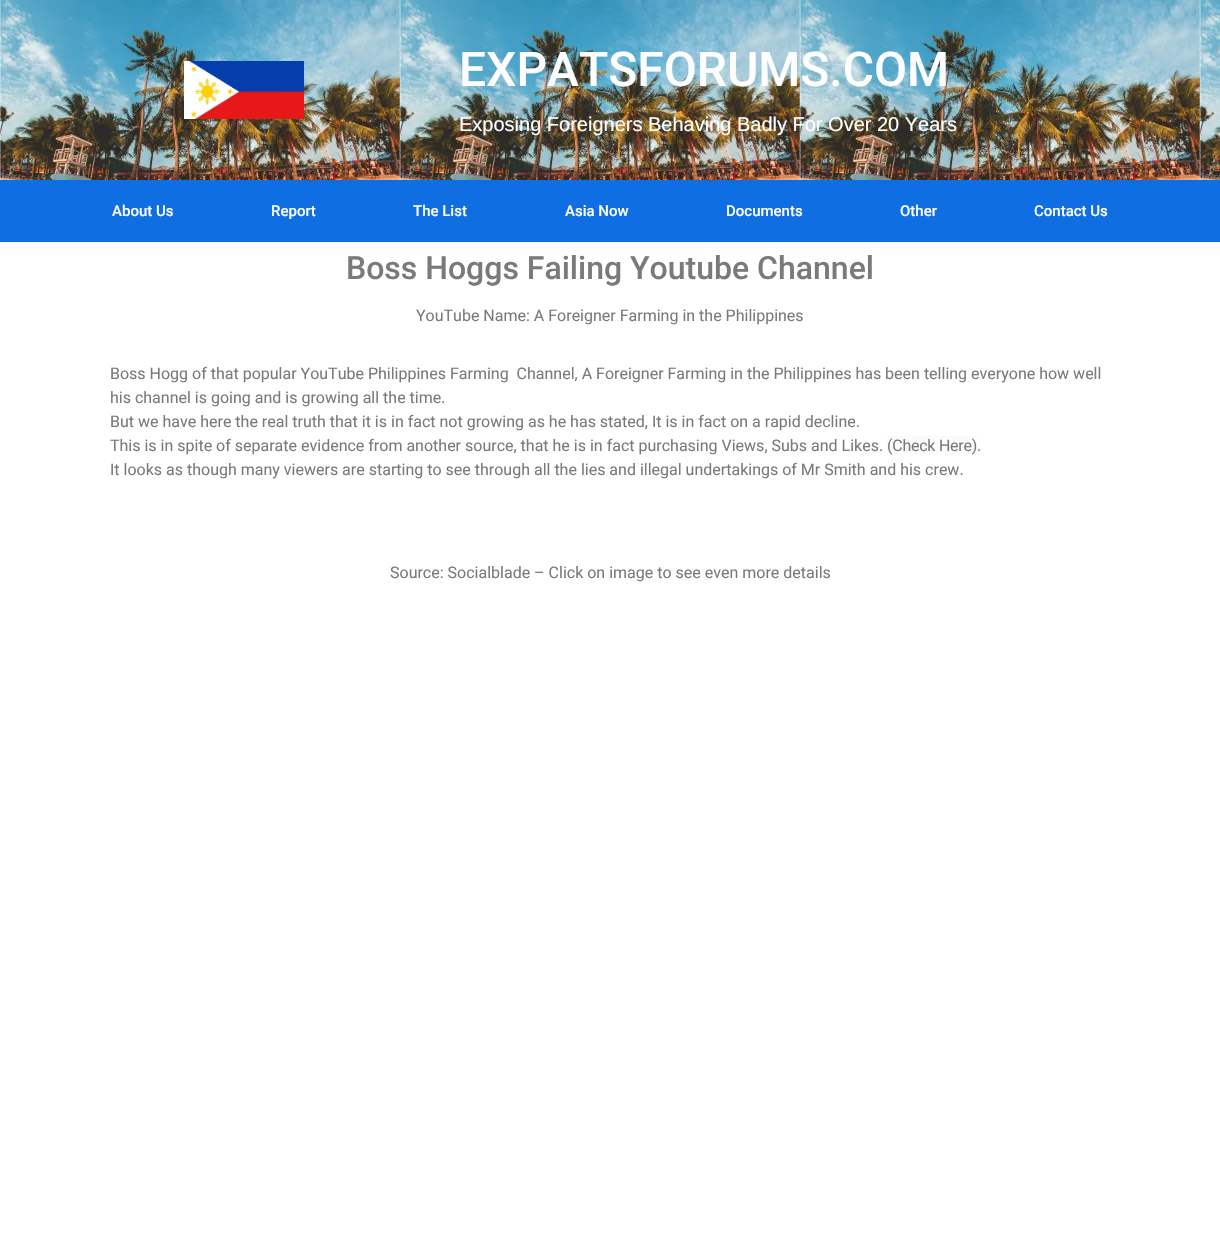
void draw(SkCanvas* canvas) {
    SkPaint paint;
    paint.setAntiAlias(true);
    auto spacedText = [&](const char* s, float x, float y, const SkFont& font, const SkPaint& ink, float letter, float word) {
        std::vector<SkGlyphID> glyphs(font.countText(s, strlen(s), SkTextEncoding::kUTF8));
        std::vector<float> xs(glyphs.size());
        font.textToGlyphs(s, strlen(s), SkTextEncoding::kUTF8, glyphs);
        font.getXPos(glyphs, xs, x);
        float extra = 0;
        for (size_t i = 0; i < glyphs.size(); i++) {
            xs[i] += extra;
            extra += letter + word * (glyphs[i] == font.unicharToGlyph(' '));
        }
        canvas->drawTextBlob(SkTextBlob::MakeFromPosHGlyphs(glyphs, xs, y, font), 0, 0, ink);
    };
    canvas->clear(0xFFFFFFFF);
    canvas->drawImageRect(SkImages::DeferredFromEncodedData(SkData::MakeFromFileName("img1.png")), SkRect::MakeXYWH(0, 0, 1220, 180), SkSamplingOptions());
    canvas->drawImageRect(SkImages::DeferredFromEncodedData(SkData::MakeFromFileName("img2.png")), SkRect::MakeXYWH(184, 61, 120, 58), SkSamplingOptions());
    SkFont font1(fontMgr->matchFamilyStyle("Roboto", SkFontStyle(500, SkFontStyle::kNormal_Width, SkFontStyle::kUpright_Slant)), 48);
    font1.setSubpixel(true);
    paint.setColor(0xFFFEFEFE);
    canvas->drawString("EXPATSFORUMS.COM", 459, 86, font1, paint);
    SkFont font2(fontMgr->matchFamilyStyle("Liberation Sans", SkFontStyle::Normal()), 20);
    font2.setSubpixel(true);
    canvas->drawString("Exposing Foreigners Behaving Badly For Over 20 Years", 459, 131, font2, paint);
    paint.setColor(0xFF0E6EE2);
    canvas->drawRect(SkRect::MakeXYWH(0, 180, 1220, 62), paint);
    SkFont font3(fontMgr->matchFamilyStyle("Roboto", SkFontStyle(500, SkFontStyle::kNormal_Width, SkFontStyle::kUpright_Slant)), 15);
    font3.setSubpixel(true);
    paint.setColor(0xFFFEFEFE);
    canvas->drawString("About Us", 112, 216, font3, paint);
    canvas->drawString("Report", 271, 216, font3, paint);
    canvas->drawString("The List", 413, 216, font3, paint);
    canvas->drawString("Asia Now", 565, 216, font3, paint);
    canvas->drawString("Documents", 726, 216, font3, paint);
    canvas->drawString("Other", 900, 216, font3, paint);
    canvas->drawString("Contact Us", 1034, 216, font3, paint);
    SkFont font4(fontMgr->matchFamilyStyle("Roboto", SkFontStyle(500, SkFontStyle::kNormal_Width, SkFontStyle::kUpright_Slant)), 32);
    font4.setSubpixel(true);
    paint.setColor(0xFF7A7A7A);
    canvas->drawString("Boss Hoggs Failing Youtube Channel", 346, 279, font4, paint);
    SkFont font5(fontMgr->matchFamilyStyle("Roboto", SkFontStyle::Normal()), 16);
    font5.setSubpixel(true);
    canvas->drawString("YouTube Name: A Foreigner Farming in the Philippines", 416, 321, font5, paint);
    canvas->drawString("Boss Hogg of that popular YouTube Philippines Farming  Channel, A Foreigner Farming in the Philippines has been telling everyone how well", 110, 379, font5, paint);
    canvas->drawString("his channel is going and is growing all the time.", 110, 403, font5, paint);
    canvas->drawString("But we have here the real truth that it is in fact not growing as he has stated, It is in fact on a rapid decline.", 110, 427, font5, paint);
    canvas->drawString("This is in spite of separate evidence from another source, that he is in fact purchasing Views, Subs and Likes.", 110, 451, font5, paint);
    paint.setColor(0xFFFAFBFD);
    canvas->drawRect(SkRect::MakeXYWH(887, 436, 90, 19), paint);
    paint.setColor(0xFF7A7A7A);
    spacedText("(Check Here)", 887, 451, font5, paint, -0.25f, 0);
    canvas->drawString(".", 977, 451, font5, paint);
    canvas->drawString("It looks as though many viewers are starting to see through all the lies and illegal undertakings of Mr Smith and his crew.", 110, 475, font5, paint);
    canvas->drawString("Source: Socialblade – Click on image to see even more details", 390, 578, font5, paint);
}
